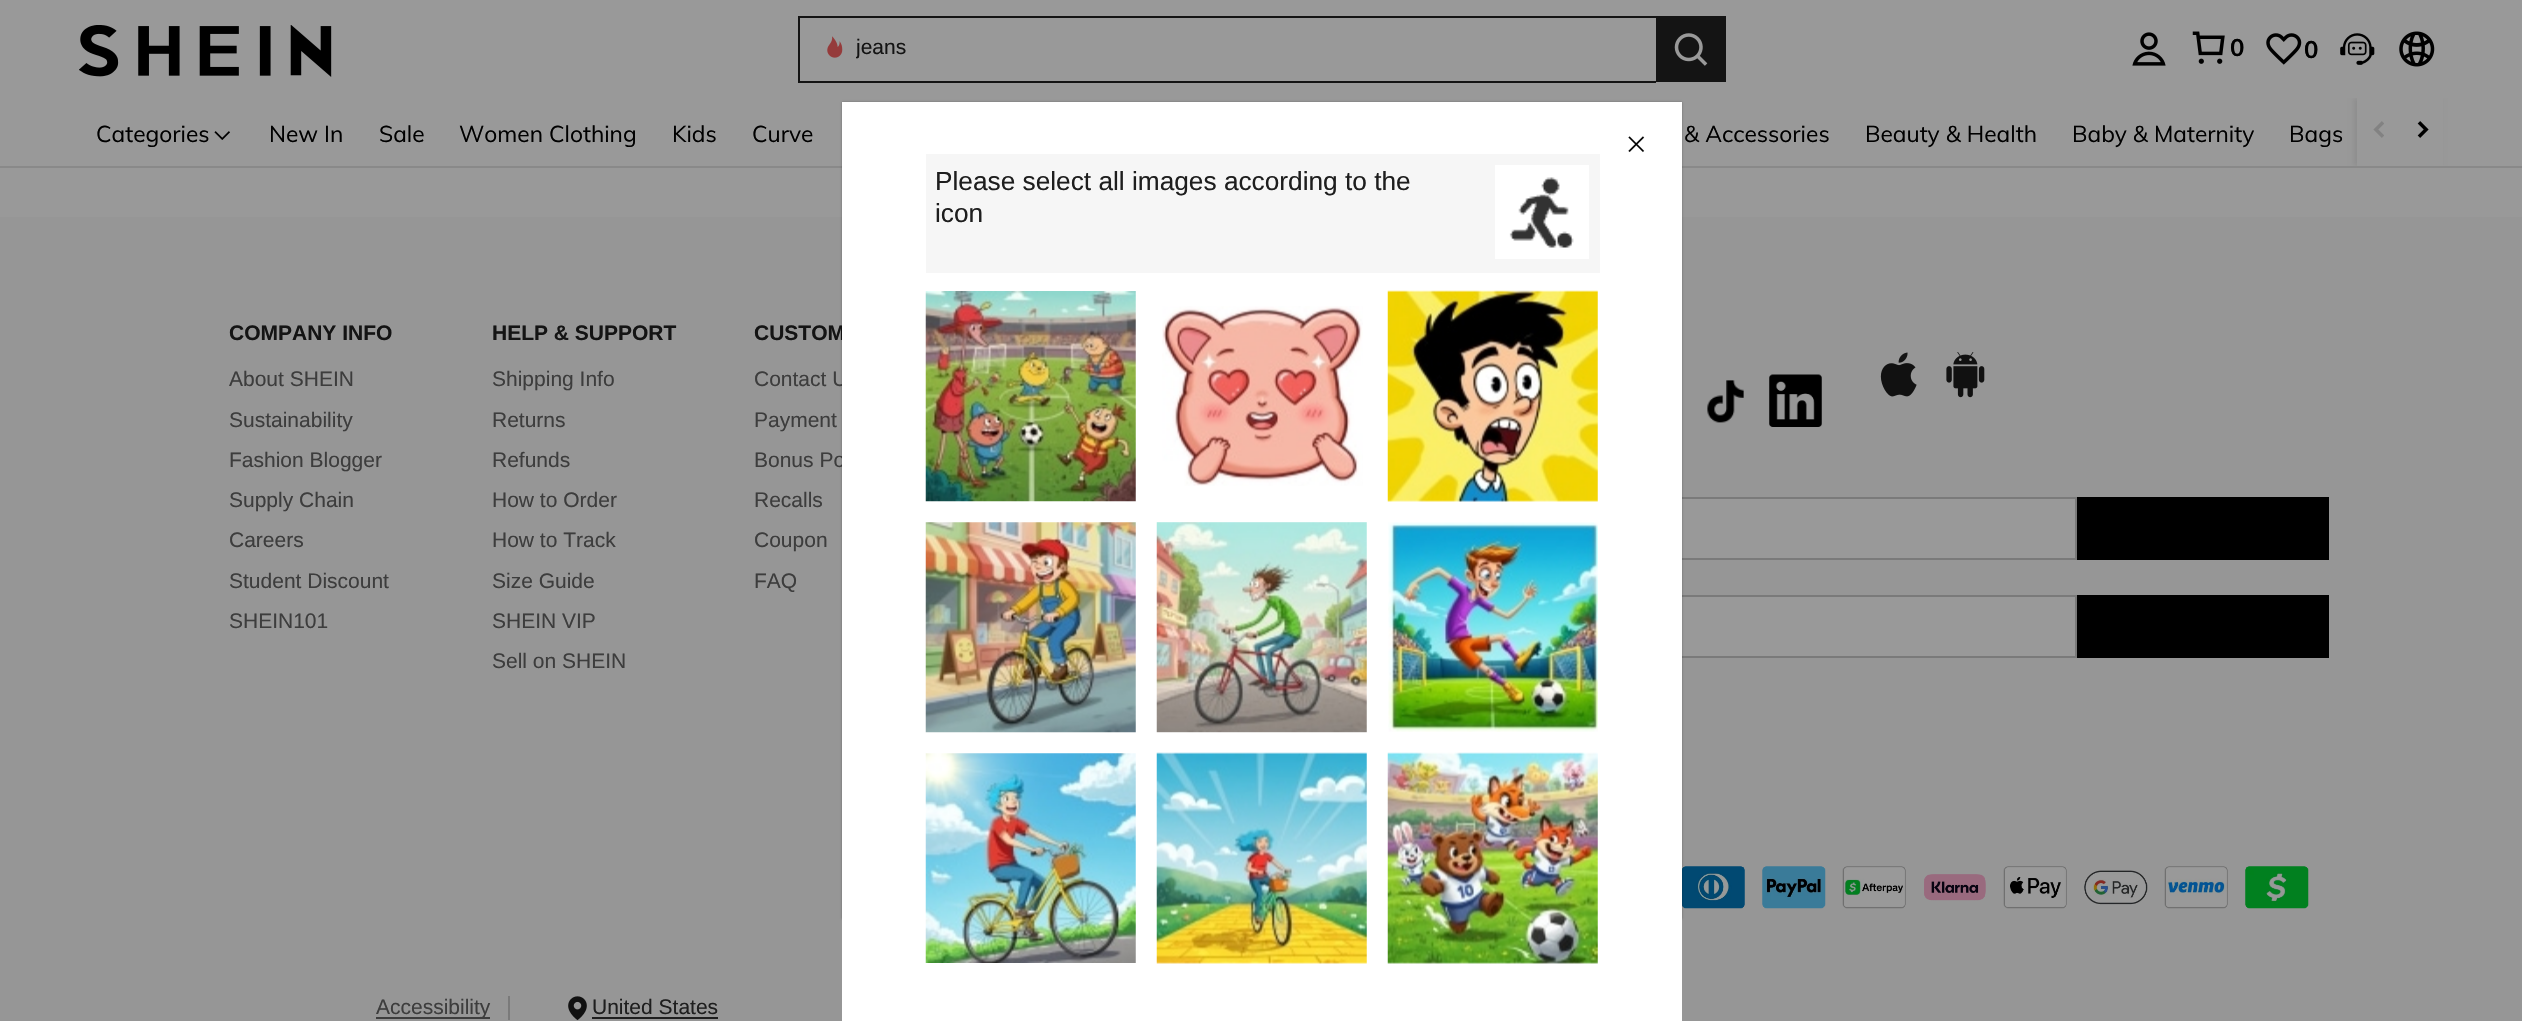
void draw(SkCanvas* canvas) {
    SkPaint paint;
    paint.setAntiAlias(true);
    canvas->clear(0xFF999999);
    canvas->drawImageRect(SkImages::DeferredFromEncodedData(SkData::MakeFromFileName("img1.png")), SkRect::MakeXYWH(79, 25, 253, 52), SkSamplingOptions());
    paint.setColor(0xFF141414);
    canvas->drawRect(SkRect::MakeXYWH(798, 16, 858, 2), paint);
    canvas->drawRect(SkRect::MakeXYWH(798, 81, 858, 2), paint);
    canvas->drawRect(SkRect::MakeXYWH(798, 16, 2, 66), paint);
    canvas->drawImageRect(SkImages::DeferredFromEncodedData(SkData::MakeFromFileName("img2.png")), SkRect::MakeXYWH(827, 36, 16, 22), SkSamplingOptions());
    canvas->save();
    canvas->clipRect(SkRect::MakeXYWH(856, 37, 51, 24));
    SkFont font1(fontMgr->matchFamilyStyle("Liberation Sans", SkFontStyle::Normal()), 21);
    font1.setSubpixel(true);
    canvas->drawString("jeans", 856, 54, font1, paint);
    canvas->restore();
    canvas->drawRect(SkRect::MakeXYWH(1656, 16, 70, 66), paint);
    canvas->drawImageRect(SkImages::DeferredFromEncodedData(SkData::MakeFromFileName("img3.png")), SkRect::MakeXYWH(1674, 33, 34, 33), SkSamplingOptions());
    canvas->drawImageRect(SkImages::DeferredFromEncodedData(SkData::MakeFromFileName("img4.png")), SkRect::MakeXYWH(2132, 32, 34, 34), SkSamplingOptions());
    canvas->drawImageRect(SkImages::DeferredFromEncodedData(SkData::MakeFromFileName("img5.png")), SkRect::MakeXYWH(2192, 31, 33, 33), SkSamplingOptions());
    SkFont font2(fontMgr->matchFamilyStyle("Muli", SkFontStyle::Bold()), 24);
    font2.setSubpixel(true);
    paint.setColor(0xFF000000);
    canvas->drawString("0", 2230, 56, font2, paint);
    canvas->drawImageRect(SkImages::DeferredFromEncodedData(SkData::MakeFromFileName("img6.png")), SkRect::MakeXYWH(2266, 33, 36, 32), SkSamplingOptions());
    canvas->drawString("0", 2304, 58, font2, paint);
    canvas->drawImageRect(SkImages::DeferredFromEncodedData(SkData::MakeFromFileName("img7.png")), SkRect::MakeXYWH(2340, 33, 35, 32), SkSamplingOptions());
    canvas->drawImageRect(SkImages::DeferredFromEncodedData(SkData::MakeFromFileName("img8.png")), SkRect::MakeXYWH(2399, 31, 36, 36), SkSamplingOptions());
    paint.setColor(0xFF898989);
    canvas->drawRect(SkRect::MakeXYWH(0, 166, 2522, 2), paint);
    SkFont font3(fontMgr->matchFamilyStyle("Muli", SkFontStyle::Normal()), 22.75f);
    font3.setSubpixel(true);
    paint.setColor(0xFF000000);
    canvas->drawString("Categories", 96, 142, font3, paint);
    canvas->drawImageRect(SkImages::DeferredFromEncodedData(SkData::MakeFromFileName("img9.png")), SkRect::MakeXYWH(214, 131, 16, 9), SkSamplingOptions());
    canvas->drawString("New In", 269, 142, font3, paint);
    canvas->drawString("Sale", 379, 142, font3, paint);
    canvas->drawString("Women Clothing", 459, 142, font3, paint);
    canvas->drawString("Kids", 672, 142, font3, paint);
    canvas->drawString("Curve", 752, 142, font3, paint);
    canvas->drawString("& Accessories", 1684, 142, font3, paint);
    canvas->drawString("Beauty & Health", 1865, 142, font3, paint);
    canvas->drawString("Baby & Maternity", 2072, 142, font3, paint);
    canvas->drawString("Bags", 2289, 142, font3, paint);
    canvas->save();
    canvas->clipRect(SkRect::MakeXYWH(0, 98, 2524, 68));
    paint.setColor(0x14000000);
    paint.setMaskFilter(SkMaskFilter::MakeBlur(kNormal_SkBlurStyle, 2.5f));
    canvas->drawRect(SkRect::MakeXYWH(2354, 98, 87, 68), paint);
    paint.setMaskFilter(nullptr);
    canvas->restore();
    paint.setColor(0xFF999999);
    canvas->drawRect(SkRect::MakeXYWH(2357, 98, 86, 68), paint);
    canvas->drawImageRect(SkImages::DeferredFromEncodedData(SkData::MakeFromFileName("img10.png")), SkRect::MakeXYWH(2373, 121, 11, 17), SkSamplingOptions());
    canvas->drawImageRect(SkImages::DeferredFromEncodedData(SkData::MakeFromFileName("img11.png")), SkRect::MakeXYWH(2417, 121, 12, 17), SkSamplingOptions());
    paint.setColor(0xFF969696);
    canvas->drawRect(SkRect::MakeXYWH(0, 217, 2522, 804), paint);
    SkFont font4(fontMgr->matchFamilyStyle("Liberation Sans", SkFontStyle::Bold()), 21);
    font4.setSubpixel(true);
    paint.setColor(0xFF141414);
    canvas->drawString("COMPANY INFO", 229, 340, font4, paint);
    paint.setColor(0xFF3D3D3D);
    canvas->drawString("About SHEIN", 229, 386, font1, paint);
    canvas->drawString("Sustainability", 229, 427, font1, paint);
    canvas->drawString("Fashion Blogger", 229, 467, font1, paint);
    canvas->drawString("Supply Chain", 229, 507, font1, paint);
    canvas->drawString("Careers", 229, 547, font1, paint);
    canvas->drawString("Student Discount", 229, 588, font1, paint);
    canvas->drawString("SHEIN101", 229, 628, font1, paint);
    paint.setColor(0xFF141414);
    canvas->drawString("HELP & SUPPORT", 492, 340, font4, paint);
    paint.setColor(0xFF3D3D3D);
    canvas->drawString("Shipping Info", 492, 386, font1, paint);
    canvas->drawString("Returns", 492, 427, font1, paint);
    canvas->drawString("Refunds", 492, 467, font1, paint);
    canvas->drawString("How to Order", 492, 507, font1, paint);
    canvas->drawString("How to Track", 492, 547, font1, paint);
    canvas->drawString("Size Guide", 492, 588, font1, paint);
    canvas->drawString("SHEIN VIP", 492, 628, font1, paint);
    canvas->drawString("Sell on SHEIN", 492, 668, font1, paint);
    paint.setColor(0xFF141414);
    canvas->drawString("CUSTOM", 754, 340, font4, paint);
    paint.setColor(0xFF3D3D3D);
    canvas->drawString("Contact U", 754, 386, font1, paint);
    canvas->drawString("Payment", 754, 427, font1, paint);
    canvas->drawString("Bonus Po", 754, 467, font1, paint);
    canvas->drawString("Recalls", 754, 507, font1, paint);
    canvas->drawString("Coupon", 754, 547, font1, paint);
    canvas->drawString("FAQ", 754, 588, font1, paint);
    canvas->drawImageRect(SkImages::DeferredFromEncodedData(SkData::MakeFromFileName("img12.png")), SkRect::MakeXYWH(1707, 380, 37, 43), SkSamplingOptions());
    canvas->drawImageRect(SkImages::DeferredFromEncodedData(SkData::MakeFromFileName("img13.png")), SkRect::MakeXYWH(1769, 374, 53, 53), SkSamplingOptions());
    canvas->drawImageRect(SkImages::DeferredFromEncodedData(SkData::MakeFromFileName("img14.png")), SkRect::MakeXYWH(1880, 352, 37, 45), SkSamplingOptions());
    canvas->drawImageRect(SkImages::DeferredFromEncodedData(SkData::MakeFromFileName("img15.png")), SkRect::MakeXYWH(1946, 352, 39, 46), SkSamplingOptions());
    paint.setColor(0xFF999999);
    canvas->drawRect(SkRect::MakeXYWH(1682, 499, 393, 59), paint);
    paint.setStyle(SkPaint::kStroke_Style);
    paint.setStrokeWidth(2);
    paint.setColor(0xFF7A7A7A);
    canvas->drawRect(SkRect::MakeXYWH(1280, 498, 796, 61), paint);
    paint.setStyle(SkPaint::kFill_Style);
    paint.setColor(0xFF000000);
    canvas->drawRect(SkRect::MakeXYWH(2077, 497, 252, 63), paint);
    paint.setColor(0xFF999999);
    canvas->drawRect(SkRect::MakeXYWH(1682, 597, 393, 59), paint);
    paint.setStyle(SkPaint::kStroke_Style);
    paint.setColor(0xFF7A7A7A);
    canvas->drawRect(SkRect::MakeXYWH(1420, 596, 656, 61), paint);
    paint.setStyle(SkPaint::kFill_Style);
    paint.setColor(0xFF000000);
    canvas->drawRect(SkRect::MakeXYWH(2077, 595, 252, 63), paint);
    canvas->drawImageRect(SkImages::DeferredFromEncodedData(SkData::MakeFromFileName("img16.png")), SkRect::MakeXYWH(1682, 866, 63, 43), SkSamplingOptions());
    canvas->drawImageRect(SkImages::DeferredFromEncodedData(SkData::MakeFromFileName("img17.png")), SkRect::MakeXYWH(1762, 866, 64, 43), SkSamplingOptions());
    canvas->drawImageRect(SkImages::DeferredFromEncodedData(SkData::MakeFromFileName("img18.png")), SkRect::MakeXYWH(1842, 866, 64, 43), SkSamplingOptions());
    canvas->drawImageRect(SkImages::DeferredFromEncodedData(SkData::MakeFromFileName("img19.png")), SkRect::MakeXYWH(1924, 874, 62, 27), SkSamplingOptions());
    canvas->drawImageRect(SkImages::DeferredFromEncodedData(SkData::MakeFromFileName("img20.png")), SkRect::MakeXYWH(2003, 866, 64, 43), SkSamplingOptions());
    canvas->drawImageRect(SkImages::DeferredFromEncodedData(SkData::MakeFromFileName("img21.png")), SkRect::MakeXYWH(2084, 870, 64, 35), SkSamplingOptions());
    canvas->drawImageRect(SkImages::DeferredFromEncodedData(SkData::MakeFromFileName("img22.png")), SkRect::MakeXYWH(2164, 866, 64, 43), SkSamplingOptions());
    canvas->drawImageRect(SkImages::DeferredFromEncodedData(SkData::MakeFromFileName("img23.png")), SkRect::MakeXYWH(2245, 866, 64, 43), SkSamplingOptions());
    paint.setColor(0xFF7A7A7A);
    canvas->drawRect(SkRect::MakeXYWH(508, 996, 2, 24), paint);
    paint.setColor(0xFF3D3D3D);
    canvas->drawRect(SkRect::MakeXYWH(376, 1017, 114, 2), paint);
    canvas->drawString("Accessibility", 376, 1014, font1, paint);
    canvas->drawImageRect(SkImages::DeferredFromEncodedData(SkData::MakeFromFileName("img24.png")), SkRect::MakeXYWH(568, 996, 19, 25), SkSamplingOptions());
    paint.setColor(0xFF1E1E1E);
    canvas->drawString("United States", 592, 1014, font1, paint);
    canvas->drawRect(SkRect::MakeXYWH(592, 1017, 126, 2), paint);
    paint.setColor(0x4D000000);
    paint.setMaskFilter(SkMaskFilter::MakeBlur(kNormal_SkBlurStyle, 1));
    canvas->drawRect(SkRect::MakeXYWH(842, 102, 840, 817), paint);
    paint.setMaskFilter(nullptr);
    paint.setColor(0xFFFFFFFF);
    canvas->drawRect(SkRect::MakeXYWH(842, 102, 840, 919), paint);
    canvas->drawImageRect(SkImages::DeferredFromEncodedData(SkData::MakeFromFileName("img25.png")), SkRect::MakeXYWH(1628, 136, 17, 17), SkSamplingOptions());
    paint.setColor(0xFFF6F6F6);
    canvas->drawRect(SkRect::MakeXYWH(926, 154, 674, 119), paint);
    SkFont font5(fontMgr->matchFamilyStyle("Liberation Sans", SkFontStyle::Normal()), 26.25f);
    font5.setSubpixel(true);
    paint.setColor(0xFF1E1E1E);
    canvas->drawString("Please select all images according to the", 935, 190, font5, paint);
    canvas->drawString("icon", 935, 222, font5, paint);
    paint.setColor(0xFFFFFFFF);
    canvas->drawRect(SkRect::MakeXYWH(1495, 165, 94, 94), paint);
    canvas->drawImageRect(SkImages::DeferredFromEncodedData(SkData::MakeFromFileName("img26.png")), SkRect::MakeXYWH(1509, 177, 65, 71), SkSamplingOptions());
    canvas->drawImageRect(SkImages::DeferredFromEncodedData(SkData::MakeFromFileName("img27.png")), SkRect::MakeXYWH(925, 291, 211, 211), SkSamplingOptions());
    canvas->drawImageRect(SkImages::DeferredFromEncodedData(SkData::MakeFromFileName("img28.png")), SkRect::MakeXYWH(1162, 306, 201, 180), SkSamplingOptions());
    canvas->drawImageRect(SkImages::DeferredFromEncodedData(SkData::MakeFromFileName("img29.png")), SkRect::MakeXYWH(1387, 290, 211, 212), SkSamplingOptions());
    canvas->drawImageRect(SkImages::DeferredFromEncodedData(SkData::MakeFromFileName("img30.png")), SkRect::MakeXYWH(925, 522, 211, 211), SkSamplingOptions());
    canvas->drawImageRect(SkImages::DeferredFromEncodedData(SkData::MakeFromFileName("img31.png")), SkRect::MakeXYWH(1156, 522, 211, 211), SkSamplingOptions());
    canvas->drawImageRect(SkImages::DeferredFromEncodedData(SkData::MakeFromFileName("img32.png")), SkRect::MakeXYWH(1388, 522, 210, 210), SkSamplingOptions());
    canvas->drawImageRect(SkImages::DeferredFromEncodedData(SkData::MakeFromFileName("img33.png")), SkRect::MakeXYWH(925, 753, 211, 210), SkSamplingOptions());
    canvas->drawImageRect(SkImages::DeferredFromEncodedData(SkData::MakeFromFileName("img34.png")), SkRect::MakeXYWH(1156, 752, 211, 212), SkSamplingOptions());
    canvas->drawImageRect(SkImages::DeferredFromEncodedData(SkData::MakeFromFileName("img35.png")), SkRect::MakeXYWH(1387, 752, 211, 212), SkSamplingOptions());
}
